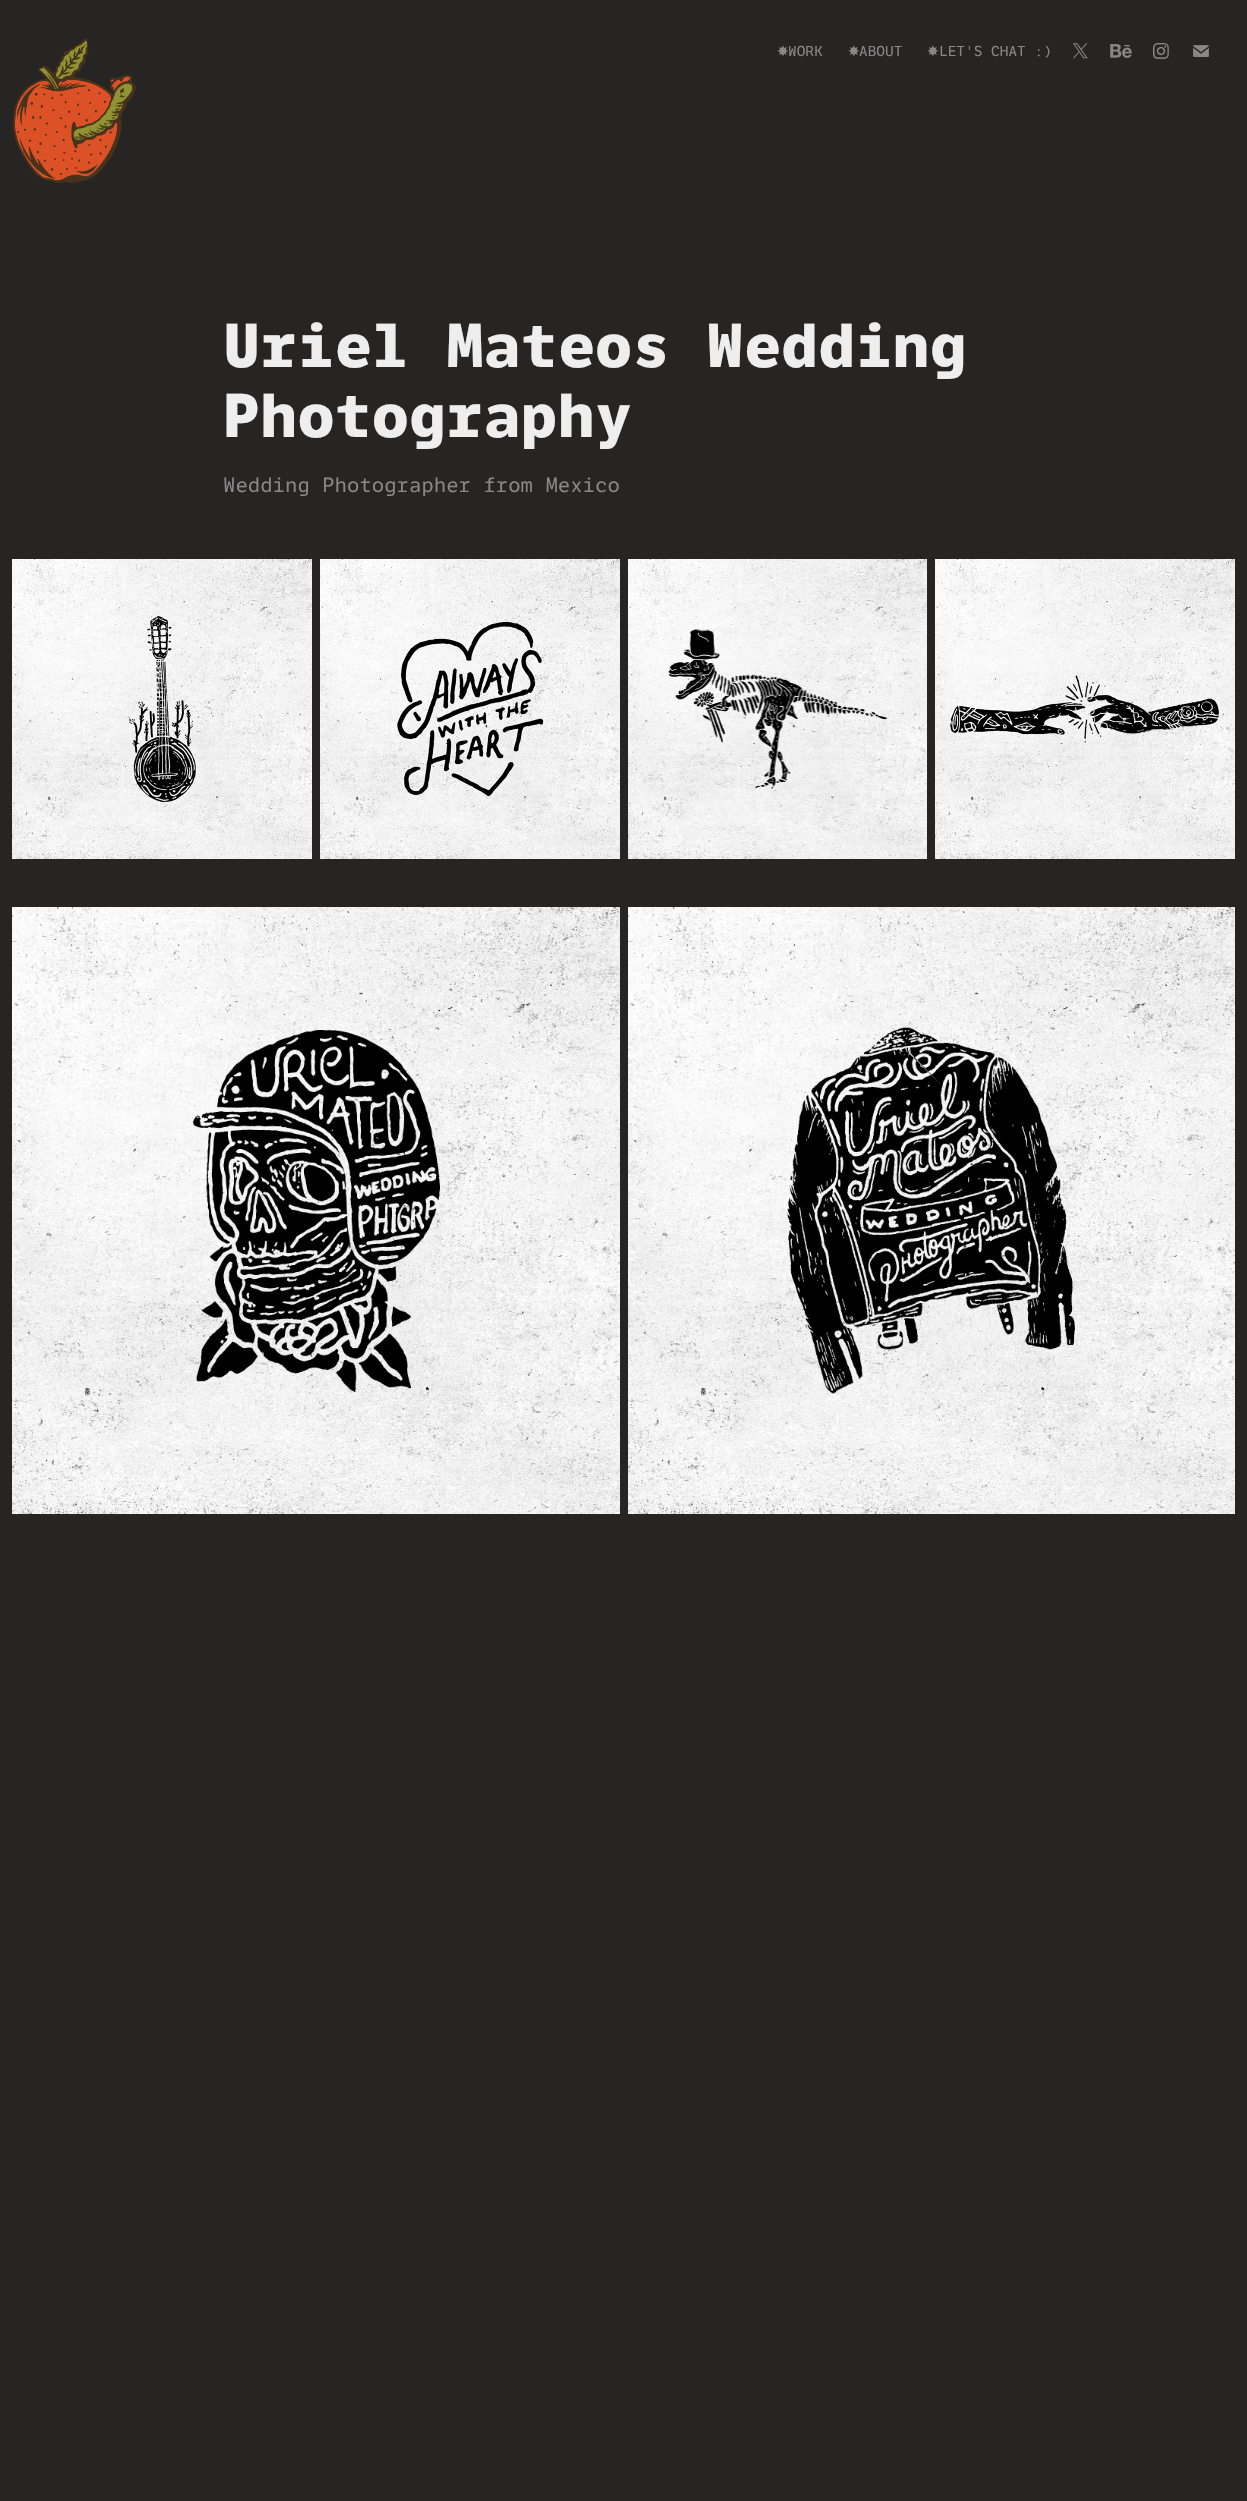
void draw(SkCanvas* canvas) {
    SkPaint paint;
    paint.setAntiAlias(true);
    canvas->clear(0xFF272424);
    canvas->drawImageRect(SkImages::DeferredFromEncodedData(SkData::MakeFromFileName("img1.png")), SkRect::MakeXYWH(13, 38, 123, 145), SkSamplingOptions());
    SkFont font1(fontMgr->matchFamilyStyle("DejaVu Sans", SkFontStyle::Normal()), 14);
    font1.setSubpixel(true);
    paint.setColor(0xFF888888);
    canvas->drawString("✸", 777, 56, font1, paint);
    SkFont font2(fontMgr->matchFamilyStyle("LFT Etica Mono", SkFontStyle::Normal()), 14);
    font2.setSubpixel(true);
    canvas->drawString("WORK", 788, 56, font2, paint);
    canvas->drawString("✸", 848, 56, font1, paint);
    canvas->drawString("ABOUT", 859, 56, font2, paint);
    canvas->drawString("✸", 927, 56, font1, paint);
    canvas->drawString("LET'S CHAT :)", 939, 56, font2, paint);
    canvas->drawImageRect(SkImages::DeferredFromEncodedData(SkData::MakeFromFileName("img2.png")), SkRect::MakeXYWH(1073, 43, 15, 16), SkSamplingOptions());
    canvas->drawImageRect(SkImages::DeferredFromEncodedData(SkData::MakeFromFileName("img3.png")), SkRect::MakeXYWH(1110, 44, 22, 14), SkSamplingOptions());
    canvas->drawImageRect(SkImages::DeferredFromEncodedData(SkData::MakeFromFileName("img4.png")), SkRect::MakeXYWH(1153, 43, 16, 16), SkSamplingOptions());
    canvas->drawImageRect(SkImages::DeferredFromEncodedData(SkData::MakeFromFileName("img5.png")), SkRect::MakeXYWH(1193, 45, 16, 12), SkSamplingOptions());
    SkFont font3(fontMgr->matchFamilyStyle("LFT Etica Mono", SkFontStyle::Bold()), 60);
    font3.setSubpixel(true);
    paint.setColor(0xFFEEEEEE);
    canvas->drawString("Uriel Mateos Wedding", 223, 367, font3, paint);
    canvas->drawString("Photography", 223, 437, font3, paint);
    SkFont font4(fontMgr->matchFamilyStyle("LFT Etica Mono", SkFontStyle::Normal()), 20);
    font4.setSubpixel(true);
    paint.setColor(0xFF888888);
    canvas->drawString("Wedding Photographer from Mexico", 223, 492, font4, paint);
    canvas->drawImageRect(SkImages::DeferredFromEncodedData(SkData::MakeFromFileName("img6.png")), SkRect::MakeXYWH(12, 559, 300, 300), SkSamplingOptions());
    canvas->drawImageRect(SkImages::DeferredFromEncodedData(SkData::MakeFromFileName("img7.png")), SkRect::MakeXYWH(320, 559, 300, 300), SkSamplingOptions());
    canvas->drawImageRect(SkImages::DeferredFromEncodedData(SkData::MakeFromFileName("img8.png")), SkRect::MakeXYWH(628, 559, 299, 300), SkSamplingOptions());
    canvas->drawImageRect(SkImages::DeferredFromEncodedData(SkData::MakeFromFileName("img9.png")), SkRect::MakeXYWH(935, 559, 300, 300), SkSamplingOptions());
    canvas->drawImageRect(SkImages::DeferredFromEncodedData(SkData::MakeFromFileName("img10.png")), SkRect::MakeXYWH(12, 907, 608, 607), SkSamplingOptions());
    canvas->drawImageRect(SkImages::DeferredFromEncodedData(SkData::MakeFromFileName("img11.png")), SkRect::MakeXYWH(628, 907, 607, 607), SkSamplingOptions());
}
